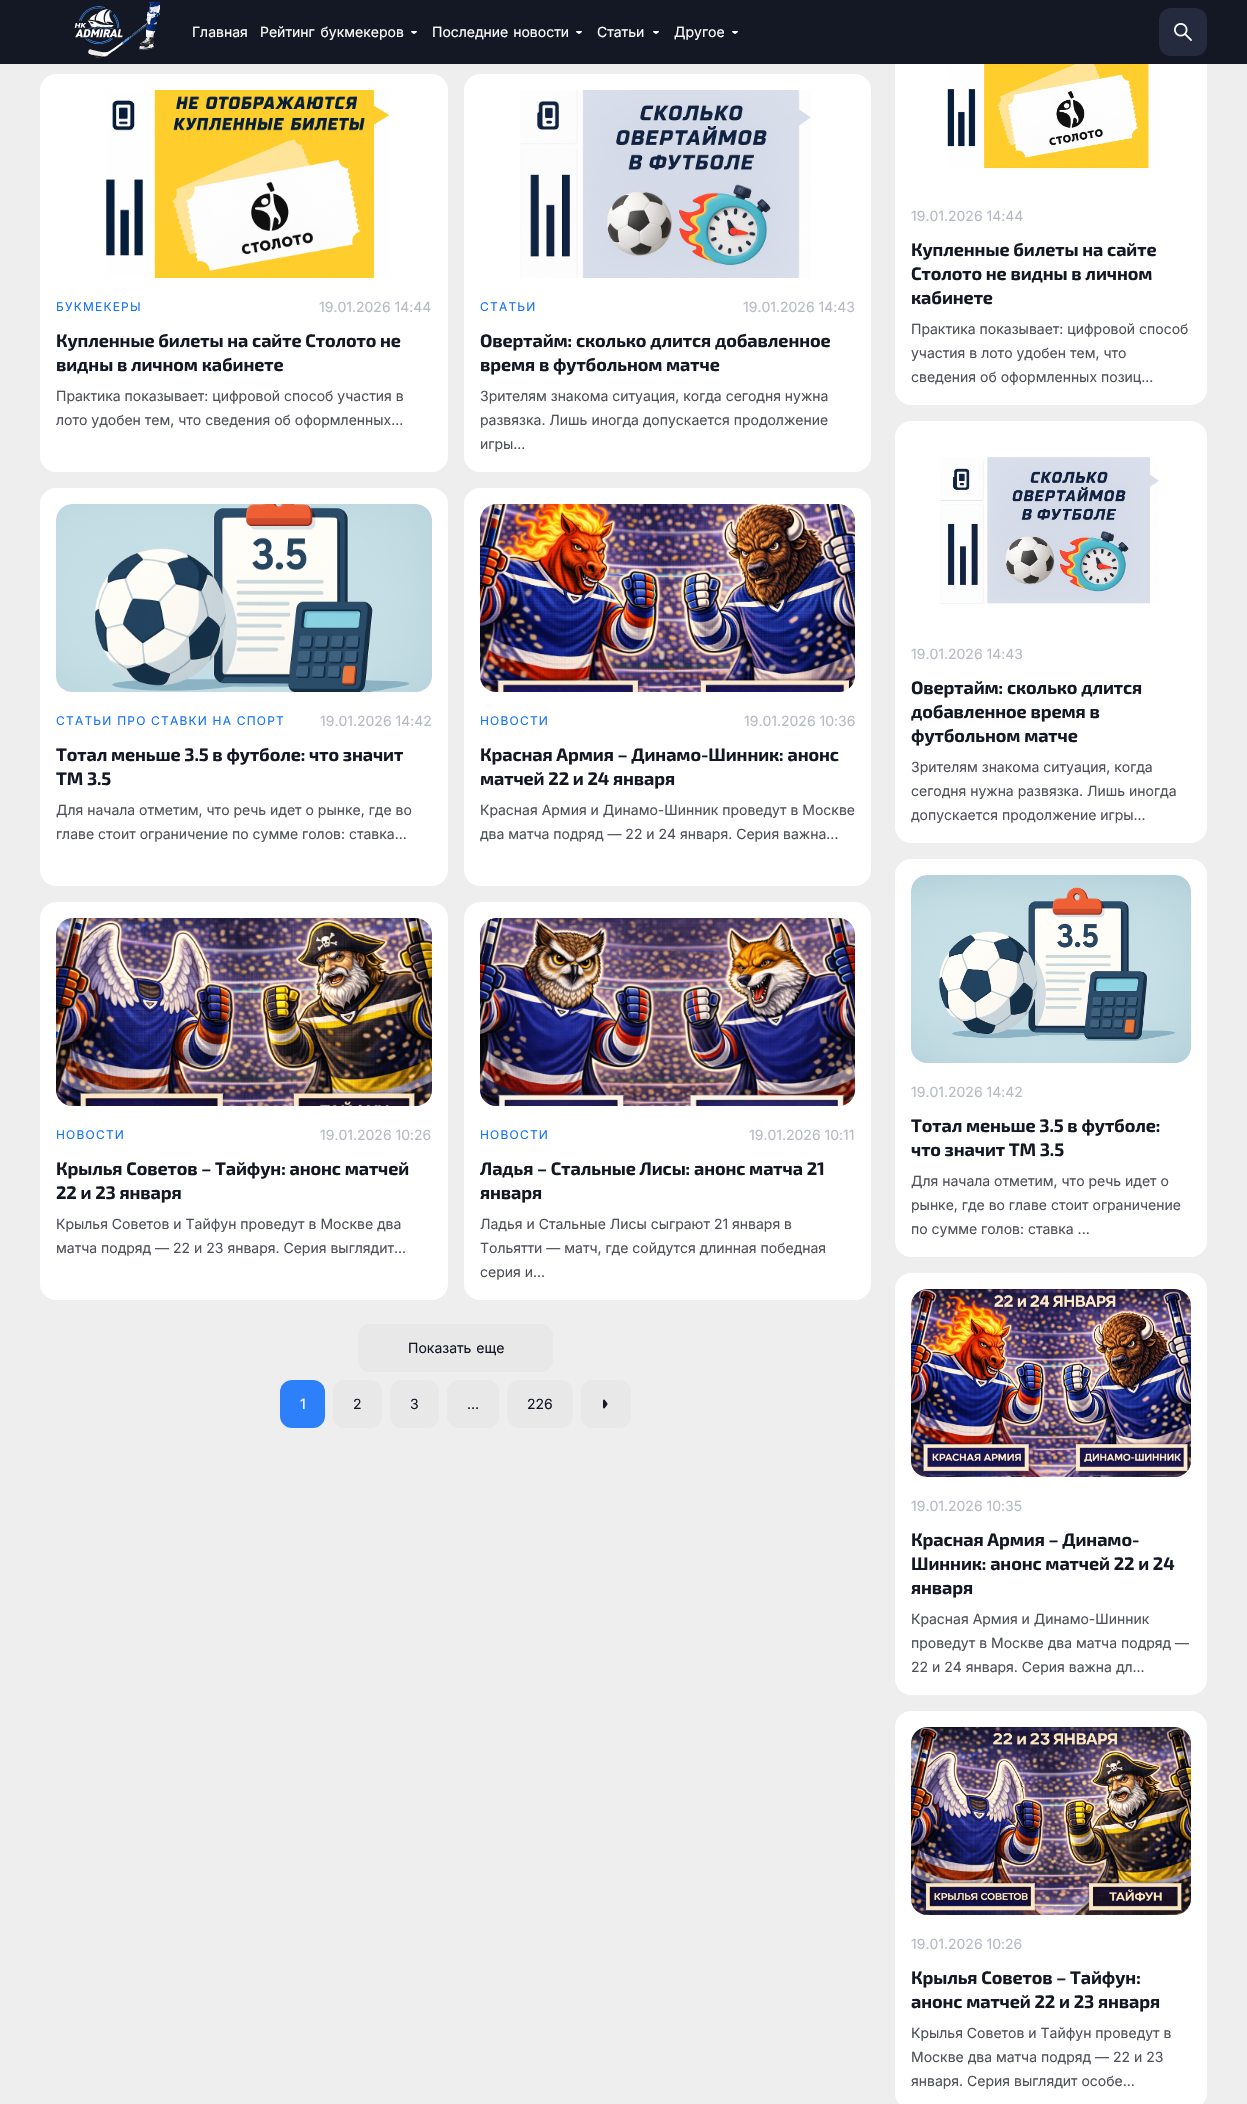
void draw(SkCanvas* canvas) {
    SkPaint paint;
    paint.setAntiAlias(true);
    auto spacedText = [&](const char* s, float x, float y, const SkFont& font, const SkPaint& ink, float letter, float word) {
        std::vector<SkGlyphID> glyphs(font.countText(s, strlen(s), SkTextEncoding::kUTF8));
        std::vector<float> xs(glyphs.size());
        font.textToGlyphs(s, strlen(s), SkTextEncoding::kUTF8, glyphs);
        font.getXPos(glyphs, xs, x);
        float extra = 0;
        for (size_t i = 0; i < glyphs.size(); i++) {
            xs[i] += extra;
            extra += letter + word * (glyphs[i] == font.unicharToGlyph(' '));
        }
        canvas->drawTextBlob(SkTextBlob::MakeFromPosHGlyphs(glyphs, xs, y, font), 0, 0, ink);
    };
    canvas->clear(0xFFEEEEEE);
    paint.setColor(0xFFFFFFFF);
    canvas->drawRoundRect(SkRect::MakeXYWH(895, -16, 312, 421), 16, 16, paint);
    paint.setColor(0xFF141825);
    canvas->drawRect(SkRect::MakeXYWH(0, 0, 1247, 64), paint);
    canvas->drawImageRect(SkImages::DeferredFromEncodedData(SkData::MakeFromFileName("img1.png")), SkRect::MakeXYWH(74, 2, 86, 57), SkSamplingOptions());
    SkFont font1(fontMgr->matchFamilyStyle("Inter", SkFontStyle::Normal()), 14);
    font1.setSubpixel(true);
    paint.setColor(0xFFFFFFFF);
    canvas->drawString("Главная", 192, 37, font1, paint);
    spacedText("Рейтинг букмекеров", 260, 37, font1, paint, 0, 2);
    canvas->drawImageRect(SkImages::DeferredFromEncodedData(SkData::MakeFromFileName("img2.png")), SkRect::MakeXYWH(411, 31, 6, 3), SkSamplingOptions());
    spacedText("Последние новости", 432, 37, font1, paint, 0, 1);
    canvas->drawImageRect(SkImages::DeferredFromEncodedData(SkData::MakeFromFileName("img2.png")), SkRect::MakeXYWH(576, 31, 6, 3), SkSamplingOptions());
    canvas->drawString("Статьи", 597, 37, font1, paint);
    canvas->drawImageRect(SkImages::DeferredFromEncodedData(SkData::MakeFromFileName("img2.png")), SkRect::MakeXYWH(653, 31, 6, 3), SkSamplingOptions());
    canvas->drawString("Другое", 674, 37, font1, paint);
    canvas->drawImageRect(SkImages::DeferredFromEncodedData(SkData::MakeFromFileName("img2.png")), SkRect::MakeXYWH(732, 31, 6, 3), SkSamplingOptions());
    paint.setColor(0xFF242B3E);
    canvas->drawRoundRect(SkRect::MakeXYWH(1159, 8, 48, 48), 12, 12, paint);
    canvas->drawImageRect(SkImages::DeferredFromEncodedData(SkData::MakeFromFileName("img3.png")), SkRect::MakeXYWH(1174, 23, 18, 18), SkSamplingOptions());
    paint.setColor(0xFFFFFFFF);
    canvas->drawRoundRect(SkRect::MakeXYWH(40, 74, 408, 398), 16, 16, paint);
    canvas->drawImageRect(SkImages::DeferredFromEncodedData(SkData::MakeFromFileName("img4.png")), SkRect::MakeXYWH(106, 90, 284, 188), SkSamplingOptions());
    SkFont font2(fontMgr->matchFamilyStyle("Inter", SkFontStyle::Normal()), 12);
    font2.setSubpixel(true);
    paint.setColor(0xFF1473FB);
    spacedText("БУКМЕКЕРЫ", 56, 311, font2, paint, 1.2f, 0);
    paint.setColor(0xFFB7BBC4);
    canvas->drawString("19.01.2026 14:44", 319, 312, font1, paint);
    SkFont font3(fontMgr->matchFamilyStyle("Exo 2", SkFontStyle::Bold()), 18);
    font3.setSubpixel(true);
    paint.setColor(0xFF141825);
    spacedText("Купленные билеты на сайте Столото не", 56, 347, font3, paint, -0.1f, 0);
    spacedText("видны в личном кабинете", 56, 371, font3, paint, -0.1f, 0);
    paint.setColor(0xFF4F525A);
    canvas->drawString("Практика показывает: цифровой способ участия в", 56, 401, font1, paint);
    canvas->drawString("лото удобен тем, что сведения об оформленных...", 56, 425, font1, paint);
    paint.setColor(0xFFFFFFFF);
    canvas->drawRoundRect(SkRect::MakeXYWH(464, 74, 407, 398), 16, 16, paint);
    canvas->drawImageRect(SkImages::DeferredFromEncodedData(SkData::MakeFromFileName("img5.png")), SkRect::MakeXYWH(520, 90, 291, 188), SkSamplingOptions());
    paint.setColor(0xFF1473FB);
    spacedText("СТАТЬИ", 480, 311, font2, paint, 1.2f, 0);
    paint.setColor(0xFFB7BBC4);
    canvas->drawString("19.01.2026 14:43", 743, 312, font1, paint);
    paint.setColor(0xFF141825);
    spacedText("Овертайм: сколько длится добавленное", 480, 347, font3, paint, -0.1f, 0);
    spacedText("время в футбольном матче", 480, 371, font3, paint, -0.1f, 0);
    paint.setColor(0xFF4F525A);
    canvas->drawString("Зрителям знакома ситуация, когда сегодня нужна", 480, 401, font1, paint);
    canvas->drawString("развязка. Лишь иногда допускается продолжение", 480, 425, font1, paint);
    canvas->drawString("игры...", 480, 449, font1, paint);
    paint.setColor(0xFFFFFFFF);
    canvas->drawRoundRect(SkRect::MakeXYWH(40, 488, 408, 398), 16, 16, paint);
    canvas->drawImageRect(SkImages::DeferredFromEncodedData(SkData::MakeFromFileName("img6.png")), SkRect::MakeXYWH(56, 504, 376, 188), SkSamplingOptions());
    paint.setColor(0xFF1473FB);
    spacedText("СТАТЬИ ПРО СТАВКИ НА СПОРТ", 56, 725, font2, paint, 1.2f, 0);
    paint.setColor(0xFFB7BBC4);
    canvas->drawString("19.01.2026 14:42", 320, 726, font1, paint);
    paint.setColor(0xFF141825);
    spacedText("Тотал меньше 3.5 в футболе: что значит", 56, 761, font3, paint, -0.1f, 0);
    spacedText("ТМ 3.5", 56, 785, font3, paint, -0.1f, 0);
    paint.setColor(0xFF4F525A);
    canvas->drawString("Для начала отметим, что речь идет о рынке, где во", 56, 815, font1, paint);
    canvas->drawString("главе стоит ограничение по сумме голов: ставка...", 56, 839, font1, paint);
    paint.setColor(0xFFFFFFFF);
    canvas->drawRoundRect(SkRect::MakeXYWH(464, 488, 407, 398), 16, 16, paint);
    canvas->drawImageRect(SkImages::DeferredFromEncodedData(SkData::MakeFromFileName("img7.png")), SkRect::MakeXYWH(480, 504, 375, 188), SkSamplingOptions());
    paint.setColor(0xFF1473FB);
    spacedText("НОВОСТИ", 480, 725, font2, paint, 1.2f, 0);
    paint.setColor(0xFFB7BBC4);
    canvas->drawString("19.01.2026 10:36", 744, 726, font1, paint);
    paint.setColor(0xFF141825);
    spacedText("Красная Армия – Динамо-Шинник: анонс", 480, 761, font3, paint, -0.1f, 0);
    spacedText("матчей 22 и 24 января", 480, 785, font3, paint, -0.1f, 0);
    paint.setColor(0xFF4F525A);
    canvas->drawString("Красная Армия и Динамо-Шинник проведут в Москве", 480, 815, font1, paint);
    canvas->save();
    canvas->clipRect(SkRect::MakeXYWH(480, 798, 375, 72));
    canvas->drawString("два матча подряд — 22 и 24 января. Серия важна...", 480, 839, font1, paint);
    canvas->restore();
    paint.setColor(0xFFFFFFFF);
    canvas->drawRoundRect(SkRect::MakeXYWH(40, 902, 408, 398), 16, 16, paint);
    canvas->drawImageRect(SkImages::DeferredFromEncodedData(SkData::MakeFromFileName("img8.png")), SkRect::MakeXYWH(56, 918, 376, 188), SkSamplingOptions());
    paint.setColor(0xFF1473FB);
    spacedText("НОВОСТИ", 56, 1139, font2, paint, 1.2f, 0);
    paint.setColor(0xFFB7BBC4);
    canvas->drawString("19.01.2026 10:26", 320, 1140, font1, paint);
    paint.setColor(0xFF141825);
    spacedText("Крылья Советов – Тайфун: анонс матчей", 56, 1175, font3, paint, -0.1f, 0);
    spacedText("22 и 23 января", 56, 1199, font3, paint, -0.1f, 0);
    paint.setColor(0xFF4F525A);
    canvas->drawString("Крылья Советов и Тайфун проведут в Москве два", 56, 1229, font1, paint);
    canvas->drawString("матча подряд — 22 и 23 января. Серия выглядит...", 56, 1253, font1, paint);
    paint.setColor(0xFFFFFFFF);
    canvas->drawRoundRect(SkRect::MakeXYWH(464, 902, 407, 398), 16, 16, paint);
    canvas->drawImageRect(SkImages::DeferredFromEncodedData(SkData::MakeFromFileName("img9.png")), SkRect::MakeXYWH(480, 918, 375, 188), SkSamplingOptions());
    paint.setColor(0xFF1473FB);
    spacedText("НОВОСТИ", 480, 1139, font2, paint, 1.2f, 0);
    paint.setColor(0xFFB7BBC4);
    canvas->drawString("19.01.2026 10:11", 749, 1140, font1, paint);
    paint.setColor(0xFF141825);
    spacedText("Ладья – Стальные Лисы: анонс матча 21", 480, 1175, font3, paint, -0.1f, 0);
    spacedText("января", 480, 1199, font3, paint, -0.1f, 0);
    paint.setColor(0xFF4F525A);
    canvas->drawString("Ладья и Стальные Лисы сыграют 21 января в", 480, 1229, font1, paint);
    canvas->drawString("Тольятти — матч, где сойдутся длинная победная", 480, 1253, font1, paint);
    canvas->drawString("серия и...", 480, 1277, font1, paint);
    paint.setColor(0xFFE8E8E8);
    canvas->drawRoundRect(SkRect::MakeXYWH(358, 1324, 195, 48), 12, 12, paint);
    paint.setColor(0xFF141825);
    spacedText("Показать еще", 408, 1353, font1, paint, 0, 1);
    paint.setColor(0xFF2D80F9);
    canvas->drawRoundRect(SkRect::MakeXYWH(280, 1380, 45, 48), 12, 12, paint);
    paint.setColor(0xFFFFFFFF);
    canvas->drawString("1", 300, 1409, font1, paint);
    paint.setColor(0xFFE8E8E8);
    canvas->drawRoundRect(SkRect::MakeXYWH(333, 1380, 49, 48), 12, 12, paint);
    paint.setColor(0xFF141825);
    canvas->drawString("2", 353, 1409, font1, paint);
    paint.setColor(0xFFE8E8E8);
    canvas->drawRoundRect(SkRect::MakeXYWH(390, 1380, 49, 48), 12, 12, paint);
    paint.setColor(0xFF141825);
    canvas->drawString("3", 410, 1409, font1, paint);
    paint.setColor(0xFFE8E8E8);
    canvas->drawRoundRect(SkRect::MakeXYWH(447, 1380, 52, 48), 12, 12, paint);
    paint.setColor(0xFF141825);
    canvas->drawString("…", 467, 1409, font1, paint);
    paint.setColor(0xFFE8E8E8);
    canvas->drawRoundRect(SkRect::MakeXYWH(507, 1380, 66, 48), 12, 12, paint);
    paint.setColor(0xFF141825);
    canvas->drawString("226", 527, 1409, font1, paint);
    paint.setColor(0xFFE8E8E8);
    canvas->drawRoundRect(SkRect::MakeXYWH(581, 1380, 50, 48), 12, 12, paint);
    canvas->drawImageRect(SkImages::DeferredFromEncodedData(SkData::MakeFromFileName("img10.png")), SkRect::MakeXYWH(603, 1399, 5, 10), SkSamplingOptions());
    canvas->drawImageRect(SkImages::DeferredFromEncodedData(SkData::MakeFromFileName("img11.png")), SkRect::MakeXYWH(947, 64, 213, 105), SkSamplingOptions());
    paint.setColor(0xFFB7BBC4);
    canvas->drawString("19.01.2026 14:44", 911, 221, font1, paint);
    paint.setColor(0xFF141825);
    spacedText("Купленные билеты на сайте", 911, 256, font3, paint, -0.1f, 0);
    spacedText("Столото не видны в личном", 911, 280, font3, paint, -0.1f, 0);
    spacedText("кабинете", 911, 304, font3, paint, -0.1f, 0);
    paint.setColor(0xFF4F525A);
    canvas->drawString("Практика показывает: цифровой способ", 911, 334, font1, paint);
    canvas->drawString("участия в лото удобен тем, что", 911, 358, font1, paint);
    canvas->drawString("сведения об оформленных позиц...", 911, 382, font1, paint);
    paint.setColor(0xFFFFFFFF);
    canvas->drawRoundRect(SkRect::MakeXYWH(895, 421, 312, 422), 16, 16, paint);
    canvas->drawImageRect(SkImages::DeferredFromEncodedData(SkData::MakeFromFileName("img12.png")), SkRect::MakeXYWH(940, 457, 219, 147), SkSamplingOptions());
    paint.setColor(0xFFB7BBC4);
    canvas->drawString("19.01.2026 14:43", 911, 659, font1, paint);
    paint.setColor(0xFF141825);
    spacedText("Овертайм: сколько длится", 911, 694, font3, paint, -0.1f, 0);
    spacedText("добавленное время в", 911, 718, font3, paint, -0.1f, 0);
    spacedText("футбольном матче", 911, 742, font3, paint, -0.1f, 0);
    paint.setColor(0xFF4F525A);
    canvas->drawString("Зрителям знакома ситуация, когда", 911, 772, font1, paint);
    canvas->drawString("сегодня нужна развязка. Лишь иногда", 911, 796, font1, paint);
    canvas->drawString("допускается продолжение игры...", 911, 820, font1, paint);
    paint.setColor(0xFFFFFFFF);
    canvas->drawRoundRect(SkRect::MakeXYWH(895, 859, 312, 398), 16, 16, paint);
    canvas->drawImageRect(SkImages::DeferredFromEncodedData(SkData::MakeFromFileName("img13.png")), SkRect::MakeXYWH(911, 875, 280, 188), SkSamplingOptions());
    paint.setColor(0xFFB7BBC4);
    canvas->drawString("19.01.2026 14:42", 911, 1097, font1, paint);
    paint.setColor(0xFF141825);
    spacedText("Тотал меньше 3.5 в футболе:", 911, 1132, font3, paint, -0.1f, 0);
    spacedText("что значит ТМ 3.5", 911, 1156, font3, paint, -0.1f, 0);
    paint.setColor(0xFF4F525A);
    canvas->drawString("Для начала отметим, что речь идет о", 911, 1186, font1, paint);
    canvas->drawString("рынке, где во главе стоит ограничение", 911, 1210, font1, paint);
    canvas->drawString("по сумме голов: ставка ...", 911, 1234, font1, paint);
    paint.setColor(0xFFFFFFFF);
    canvas->drawRoundRect(SkRect::MakeXYWH(895, 1273, 312, 422), 16, 16, paint);
    canvas->drawImageRect(SkImages::DeferredFromEncodedData(SkData::MakeFromFileName("img14.png")), SkRect::MakeXYWH(911, 1289, 280, 188), SkSamplingOptions());
    paint.setColor(0xFFB7BBC4);
    canvas->drawString("19.01.2026 10:35", 911, 1511, font1, paint);
    paint.setColor(0xFF141825);
    spacedText("Красная Армия – Динамо-", 911, 1546, font3, paint, -0.1f, 0);
    spacedText("Шинник: анонс матчей 22 и 24", 911, 1570, font3, paint, -0.1f, 0);
    spacedText("января", 911, 1594, font3, paint, -0.1f, 0);
    paint.setColor(0xFF4F525A);
    canvas->drawString("Красная Армия и Динамо-Шинник", 911, 1624, font1, paint);
    canvas->drawString("проведут в Москве два матча подряд —", 911, 1648, font1, paint);
    canvas->drawString("22 и 24 января. Серия важна дл...", 911, 1672, font1, paint);
    paint.setColor(0xFFFFFFFF);
    canvas->drawRoundRect(SkRect::MakeXYWH(895, 1711, 312, 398), 16, 16, paint);
    canvas->drawImageRect(SkImages::DeferredFromEncodedData(SkData::MakeFromFileName("img15.png")), SkRect::MakeXYWH(911, 1727, 280, 188), SkSamplingOptions());
    paint.setColor(0xFFB7BBC4);
    canvas->drawString("19.01.2026 10:26", 911, 1949, font1, paint);
    paint.setColor(0xFF141825);
    spacedText("Крылья Советов – Тайфун:", 911, 1984, font3, paint, -0.1f, 0);
    spacedText("анонс матчей 22 и 23 января", 911, 2008, font3, paint, -0.1f, 0);
    paint.setColor(0xFF4F525A);
    canvas->drawString("Крылья Советов и Тайфун проведут в", 911, 2038, font1, paint);
    canvas->drawString("Москве два матча подряд — 22 и 23", 911, 2062, font1, paint);
    canvas->drawString("января. Серия выглядит особе...", 911, 2086, font1, paint);
}
